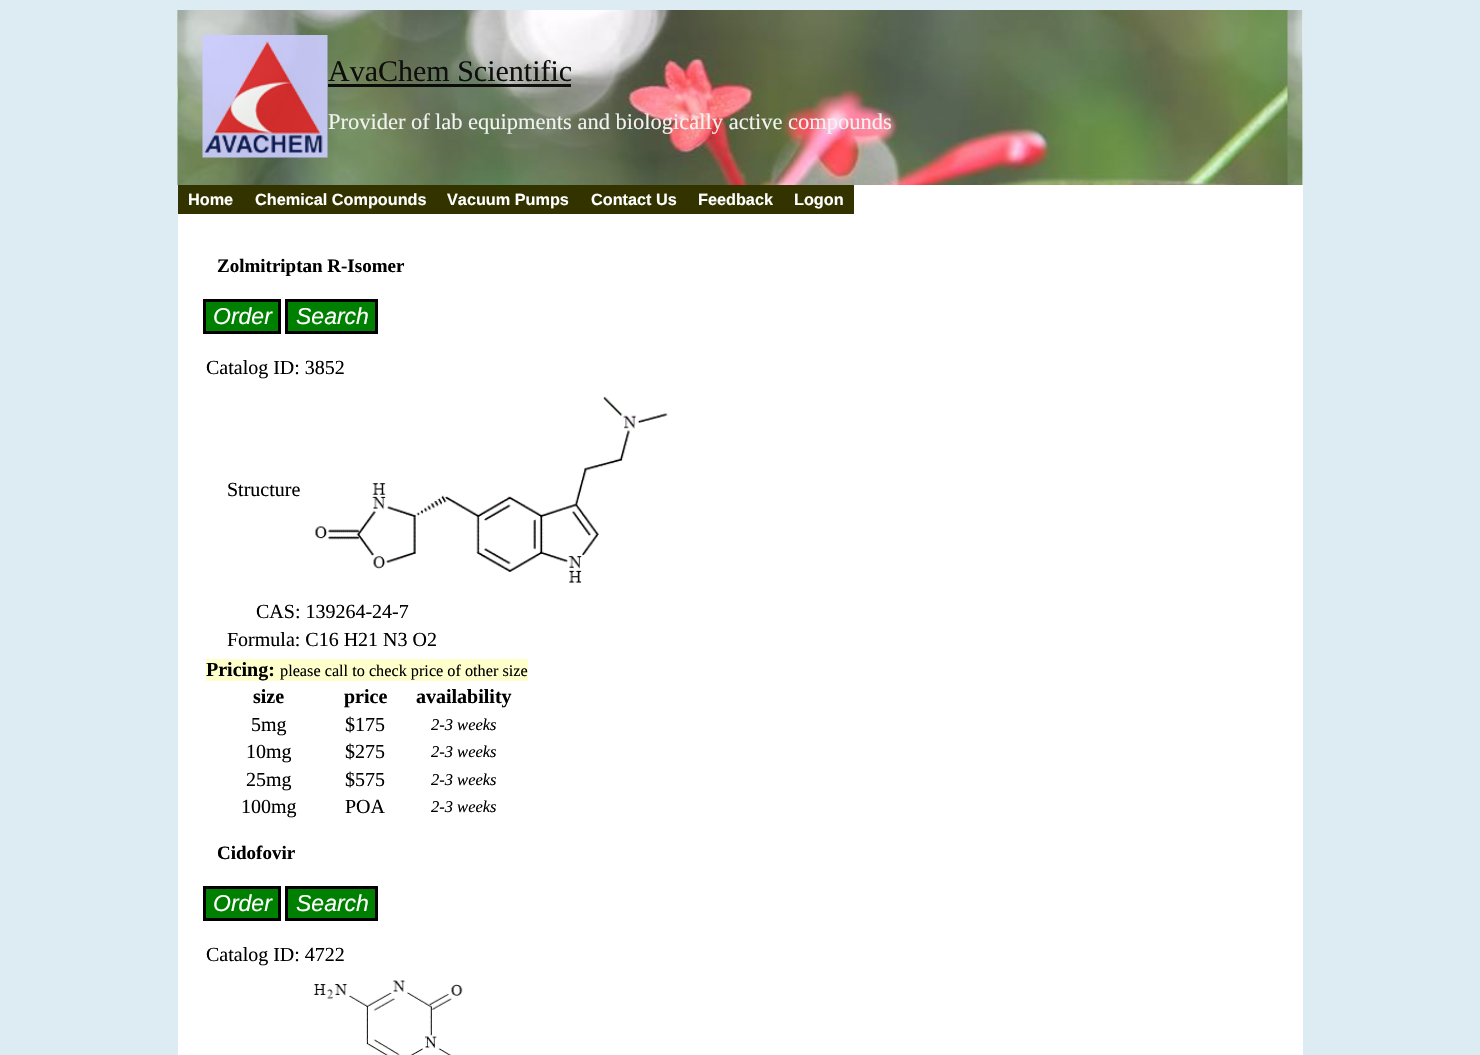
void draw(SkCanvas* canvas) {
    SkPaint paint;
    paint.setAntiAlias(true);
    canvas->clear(0xFFDDECF3);
    paint.setColor(0xFFFFFFFF);
    canvas->drawRect(SkRect::MakeXYWH(178, 10, 1125, 1045), paint);
    canvas->drawImageRect(SkImages::DeferredFromEncodedData(SkData::MakeFromFileName("img1.png")), SkRect::MakeXYWH(177, 10, 1126, 175), SkSamplingOptions());
    canvas->drawImageRect(SkImages::DeferredFromEncodedData(SkData::MakeFromFileName("img2.png")), SkRect::MakeXYWH(202, 35, 126, 123), SkSamplingOptions());
    SkFont font1(fontMgr->matchFamilyStyle("Liberation Serif", SkFontStyle::Normal()), 30);
    font1.setSubpixel(true);
    paint.setColor(0xFF0E0F0D);
    canvas->drawString("AvaChem Scientific", 328, 81, font1, paint);
    paint.setColor(0xE6000000);
    canvas->drawRect(SkRect::MakeXYWH(328, 84, 243, 3), paint);
    SkFont font2(fontMgr->matchFamilyStyle("Liberation Serif", SkFontStyle::Normal()), 22.5f);
    font2.setSubpixel(true);
    paint.setColor(0xFFF1F3EF);
    canvas->drawString("Provider of", 328, 129, font2, paint);
    canvas->drawString("lab equipments and biologically active compounds", 435, 129, font2, paint);
    paint.setColor(0xFF333300);
    canvas->drawRect(SkRect::MakeXYWH(178, 185, 676, 29), paint);
    SkFont font3(fontMgr->matchFamilyStyle("Liberation Sans", SkFontStyle::Bold()), 16.25f);
    font3.setSubpixel(true);
    paint.setColor(0xFFFFFFFF);
    canvas->drawString("Home", 188, 205, font3, paint);
    canvas->drawString("Chemical Compounds", 255, 205, font3, paint);
    canvas->drawString("Vacuum Pumps", 447, 205, font3, paint);
    canvas->drawString("Contact Us", 591, 205, font3, paint);
    canvas->drawString("Feedback", 698, 205, font3, paint);
    canvas->drawString("Logon", 794, 205, font3, paint);
    SkFont font4(fontMgr->matchFamilyStyle("Liberation Serif", SkFontStyle::Bold()), 19);
    font4.setSubpixel(true);
    paint.setColor(0xFF000000);
    canvas->drawString("Zolmitriptan R-Isomer", 217, 272, font4, paint);
    paint.setColor(0xFF008000);
    canvas->drawRect(SkRect::MakeXYWH(204.5f, 300.5f, 75, 32), paint);
    paint.setStyle(SkPaint::kStroke_Style);
    paint.setStrokeWidth(3);
    paint.setColor(0xFF000000);
    canvas->drawRect(SkRect::MakeXYWH(204.5f, 300.5f, 75, 32), paint);
    SkFont font5(fontMgr->matchFamilyStyle("Liberation Sans", SkFontStyle::Italic()), 23);
    font5.setSubpixel(true);
    paint.setStyle(SkPaint::kFill_Style);
    paint.setColor(0xFFFFFFFF);
    canvas->drawString("Order", 213, 324, font5, paint);
    paint.setColor(0xFF008000);
    canvas->drawRect(SkRect::MakeXYWH(286.5f, 300.5f, 90, 32), paint);
    paint.setStyle(SkPaint::kStroke_Style);
    paint.setColor(0xFF000000);
    canvas->drawRect(SkRect::MakeXYWH(286.5f, 300.5f, 90, 32), paint);
    paint.setStyle(SkPaint::kFill_Style);
    paint.setColor(0xFFFFFFFF);
    canvas->drawString("Search", 296, 324, font5, paint);
    SkFont font6(fontMgr->matchFamilyStyle("Liberation Serif", SkFontStyle::Normal()), 20);
    font6.setSubpixel(true);
    paint.setColor(0xFF000000);
    canvas->drawString("Catalog ID: 3852", 206, 374, font6, paint);
    canvas->drawString("Structure", 227, 496, font6, paint);
    canvas->drawImageRect(SkImages::DeferredFromEncodedData(SkData::MakeFromFileName("img3.png")), SkRect::MakeXYWH(315, 396, 353, 187), SkSamplingOptions());
    canvas->drawString("CAS: 139264-24-7", 256, 618, font6, paint);
    canvas->drawString("Formula: C16 H21 N3 O2", 227, 646, font6, paint);
    paint.setColor(0xFFFFFFCC);
    canvas->drawRect(SkRect::MakeXYWH(206, 659, 322, 22), paint);
    SkFont font7(fontMgr->matchFamilyStyle("Liberation Serif", SkFontStyle::Bold()), 20);
    font7.setSubpixel(true);
    paint.setColor(0xFF000000);
    canvas->drawString("Pricing:", 206, 676, font7, paint);
    SkFont font8(fontMgr->matchFamilyStyle("Liberation Serif", SkFontStyle::Normal()), 16.25f);
    font8.setSubpixel(true);
    canvas->drawString("please call to check price of other size", 280, 676, font8, paint);
    canvas->drawString("size", 253, 703, font7, paint);
    canvas->drawString("price", 344, 703, font7, paint);
    canvas->drawString("availability", 416, 703, font7, paint);
    canvas->drawString("5mg", 251, 731, font6, paint);
    canvas->drawString("$175", 345, 731, font6, paint);
    SkFont font9(fontMgr->matchFamilyStyle("Liberation Serif", SkFontStyle::Italic()), 16.5f);
    font9.setSubpixel(true);
    canvas->drawString("2-3 weeks", 431, 730, font9, paint);
    canvas->drawString("10mg", 246, 758, font6, paint);
    canvas->drawString("$275", 345, 758, font6, paint);
    canvas->drawString("2-3 weeks", 431, 757, font9, paint);
    canvas->drawString("25mg", 246, 786, font6, paint);
    canvas->drawString("$575", 345, 786, font6, paint);
    canvas->drawString("2-3 weeks", 431, 785, font9, paint);
    canvas->drawString("100mg", 241, 813, font6, paint);
    canvas->drawString("POA", 345, 813, font6, paint);
    canvas->drawString("2-3 weeks", 431, 812, font9, paint);
    canvas->drawString("Cidofovir", 217, 859, font4, paint);
    paint.setColor(0xFF008000);
    canvas->drawRect(SkRect::MakeXYWH(204.5f, 887.5f, 75, 32), paint);
    paint.setStyle(SkPaint::kStroke_Style);
    paint.setColor(0xFF000000);
    canvas->drawRect(SkRect::MakeXYWH(204.5f, 887.5f, 75, 32), paint);
    paint.setStyle(SkPaint::kFill_Style);
    paint.setColor(0xFFFFFFFF);
    canvas->drawString("Order", 213, 911, font5, paint);
    paint.setColor(0xFF008000);
    canvas->drawRect(SkRect::MakeXYWH(286.5f, 887.5f, 90, 32), paint);
    paint.setStyle(SkPaint::kStroke_Style);
    paint.setColor(0xFF000000);
    canvas->drawRect(SkRect::MakeXYWH(286.5f, 887.5f, 90, 32), paint);
    paint.setStyle(SkPaint::kFill_Style);
    paint.setColor(0xFFFFFFFF);
    canvas->drawString("Search", 296, 911, font5, paint);
    paint.setColor(0xFF000000);
    canvas->drawString("Catalog ID: 4722", 206, 961, font6, paint);
    canvas->drawImageRect(SkImages::DeferredFromEncodedData(SkData::MakeFromFileName("img4.png")), SkRect::MakeXYWH(313, 980, 150, 75), SkSamplingOptions());
}
